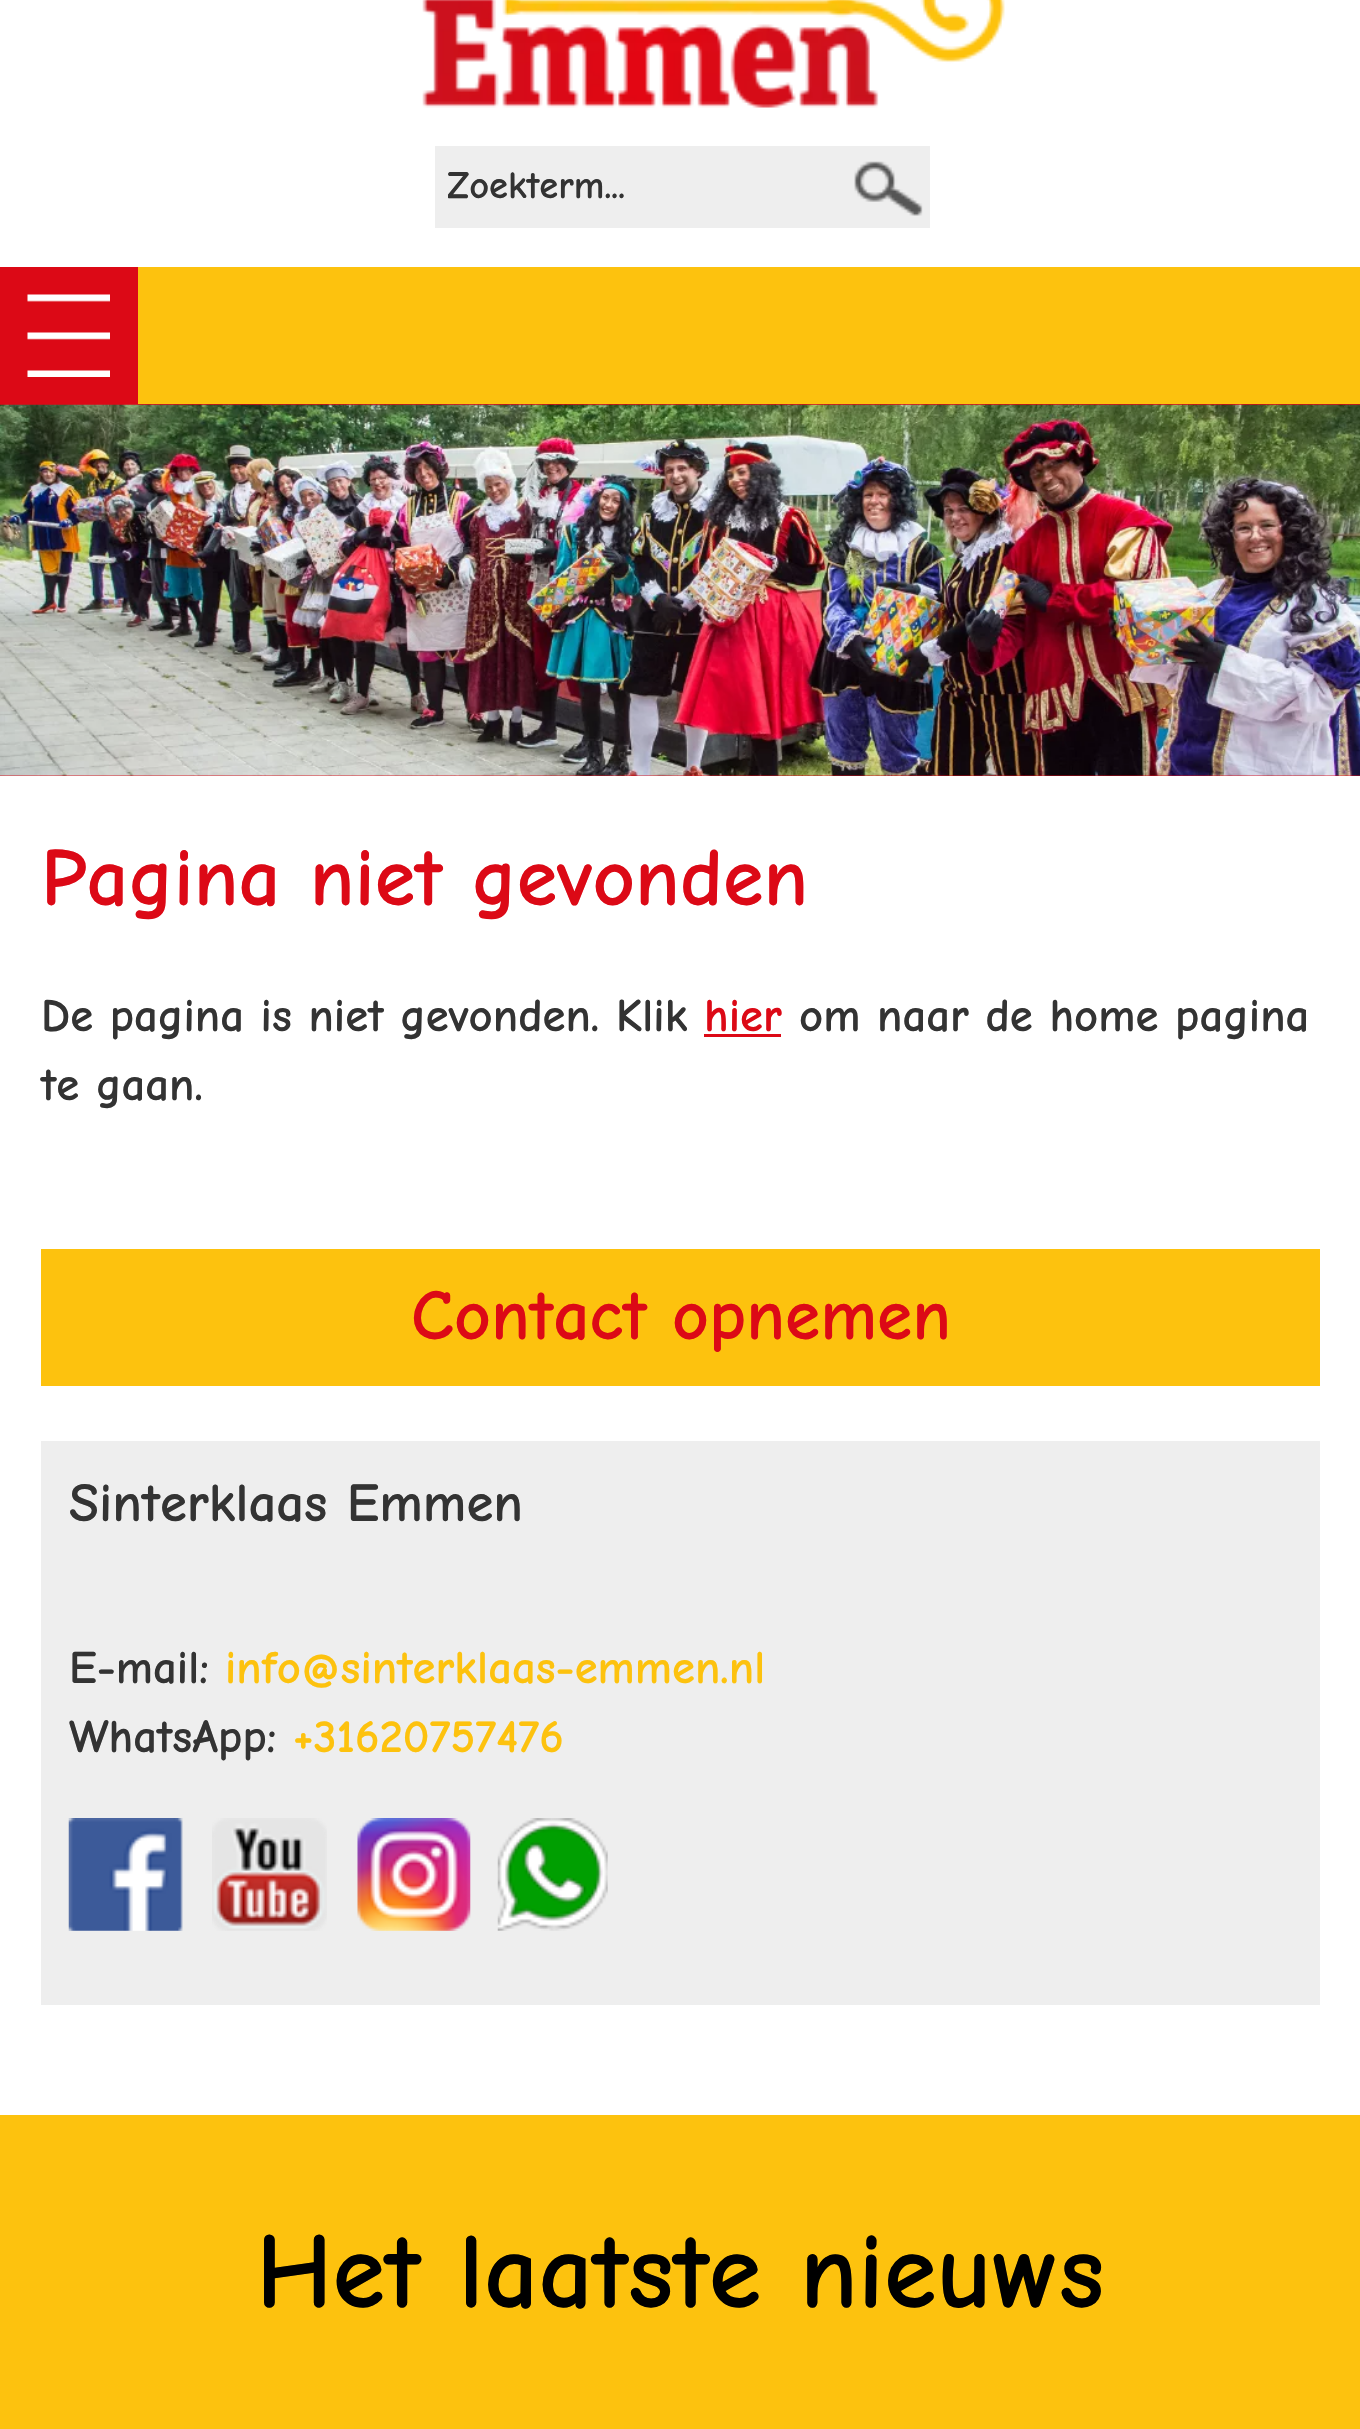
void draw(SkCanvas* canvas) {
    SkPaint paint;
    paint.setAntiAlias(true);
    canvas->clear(0xFFFFFFFF);
    canvas->drawImageRect(SkImages::DeferredFromEncodedData(SkData::MakeFromFileName("img1.png")), SkRect::MakeXYWH(422, 0, 583, 108), SkSamplingOptions());
    paint.setColor(0xFFEEEEEE);
    canvas->drawRect(SkRect::MakeXYWH(435, 146, 495, 82), paint);
    canvas->save();
    canvas->clipRect(SkRect::MakeXYWH(448, 146, 399, 82));
    SkFont font1(fontMgr->matchFamilyStyle("Comic Neue", SkFontStyle::Bold()), 38.5f);
    font1.setSubpixel(true);
    paint.setColor(0xFF333333);
    canvas->drawString("Zoekterm...", 447, 198, font1, paint);
    canvas->restore();
    canvas->drawImageRect(SkImages::DeferredFromEncodedData(SkData::MakeFromFileName("img2.png")), SkRect::MakeXYWH(854, 161, 69, 55), SkSamplingOptions());
    paint.setColor(0xFFFDC20E);
    canvas->drawRect(SkRect::MakeXYWH(138, 267, 1222, 137), paint);
    paint.setColor(0xFFDC0916);
    canvas->drawRect(SkRect::MakeXYWH(0, 267, 138, 137), paint);
    canvas->drawImageRect(SkImages::DeferredFromEncodedData(SkData::MakeFromFileName("img3.png")), SkRect::MakeXYWH(27, 294, 83, 83), SkSamplingOptions());
    canvas->drawRect(SkRect::MakeXYWH(0, 404, 1360, 372), paint);
    canvas->drawImageRect(SkImages::DeferredFromEncodedData(SkData::MakeFromFileName("img4.png")), SkRect::MakeXYWH(0, 404, 1360, 372), SkSamplingOptions());
    SkFont font2(fontMgr->matchFamilyStyle("Comic Neue", SkFontStyle::Bold()), 82.5f);
    font2.setSubpixel(true);
    canvas->drawString("Pagina niet gevonden", 41, 905, font2, paint);
    SkFont font3(fontMgr->matchFamilyStyle("Comic Neue", SkFontStyle::Bold()), 46.75f);
    font3.setSubpixel(true);
    paint.setColor(0xFF333333);
    canvas->drawString("De pagina is niet gevonden. Klik", 41, 1031, font3, paint);
    paint.setColor(0xFFDC0916);
    canvas->drawString("hier", 704, 1031, font3, paint);
    canvas->drawRect(SkRect::MakeXYWH(704, 1034, 77, 3), paint);
    paint.setColor(0xFF333333);
    canvas->drawString("om naar de home pagina", 799, 1031, font3, paint);
    canvas->drawString("te gaan.", 41, 1100, font3, paint);
    paint.setColor(0xFFFDC20E);
    canvas->drawRect(SkRect::MakeXYWH(41, 1249, 1279, 137), paint);
    SkFont font4(fontMgr->matchFamilyStyle("Comic Neue", SkFontStyle::Bold()), 71.5f);
    font4.setSubpixel(true);
    paint.setColor(0xFFDC0916);
    canvas->drawString("Contact opnemen", 411, 1339, font4, paint);
    paint.setColor(0xFFEEEEEE);
    canvas->drawRect(SkRect::MakeXYWH(41, 1441, 1279, 564), paint);
    SkFont font5(fontMgr->matchFamilyStyle("Comic Neue", SkFontStyle::Bold()), 54.75f);
    font5.setSubpixel(true);
    paint.setColor(0xFF333333);
    canvas->drawString("Sinterklaas Emmen", 69, 1521, font5, paint);
    canvas->drawString("E-mail:", 69, 1683, font3, paint);
    paint.setColor(0xFFFDC20E);
    canvas->drawString("info@sinterklaas-emmen.nl", 225, 1683, font3, paint);
    paint.setColor(0xFF333333);
    canvas->drawString("WhatsApp:", 69, 1752, font3, paint);
    paint.setColor(0xFFFDC20E);
    canvas->drawString("+31620757476", 293, 1752, font3, paint);
    canvas->drawImageRect(SkImages::DeferredFromEncodedData(SkData::MakeFromFileName("img5.png")), SkRect::MakeXYWH(68, 1818, 115, 113), SkSamplingOptions());
    canvas->drawImageRect(SkImages::DeferredFromEncodedData(SkData::MakeFromFileName("img6.png")), SkRect::MakeXYWH(212, 1818, 115, 113), SkSamplingOptions());
    canvas->drawImageRect(SkImages::DeferredFromEncodedData(SkData::MakeFromFileName("img7.png")), SkRect::MakeXYWH(357, 1818, 114, 113), SkSamplingOptions());
    canvas->drawImageRect(SkImages::DeferredFromEncodedData(SkData::MakeFromFileName("img8.png")), SkRect::MakeXYWH(497, 1818, 111, 113), SkSamplingOptions());
    canvas->drawRect(SkRect::MakeXYWH(0, 2115, 1360, 314), paint);
    SkFont font6(fontMgr->matchFamilyStyle("Comic Neue", SkFontStyle::Bold()), 107.25f);
    font6.setSubpixel(true);
    paint.setColor(0xFF000000);
    canvas->drawString("Het laatste nieuws", 256, 2307, font6, paint);
}
